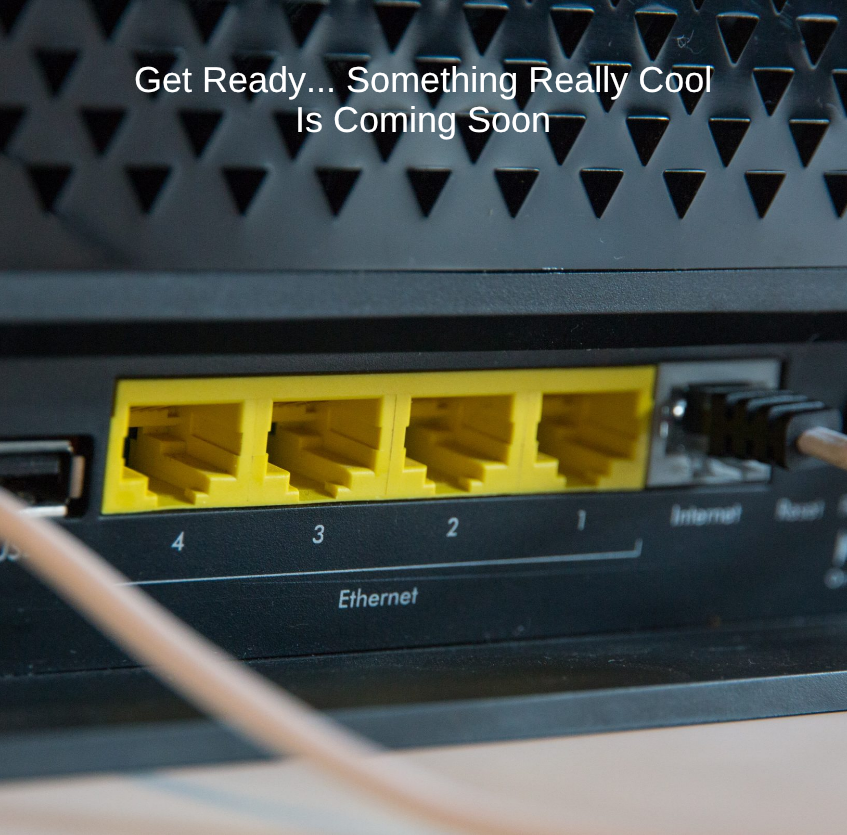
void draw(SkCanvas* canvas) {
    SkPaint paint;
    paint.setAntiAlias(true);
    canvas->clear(0xFFFFFFFF);
    canvas->drawImageRect(SkImages::DeferredFromEncodedData(SkData::MakeFromFileName("img1.png")), SkRect::MakeXYWH(0, 0, 847, 835), SkSamplingOptions());
    SkFont font1(fontMgr->matchFamilyStyle("Liberation Sans", SkFontStyle::Normal()), 36);
    font1.setSubpixel(true);
    paint.setColor(0xFFFFFFFF);
    canvas->drawString("Get Ready... Something Really Cool", 134, 92, font1, paint);
    canvas->drawString("Is Coming Soon", 295, 132, font1, paint);
}
